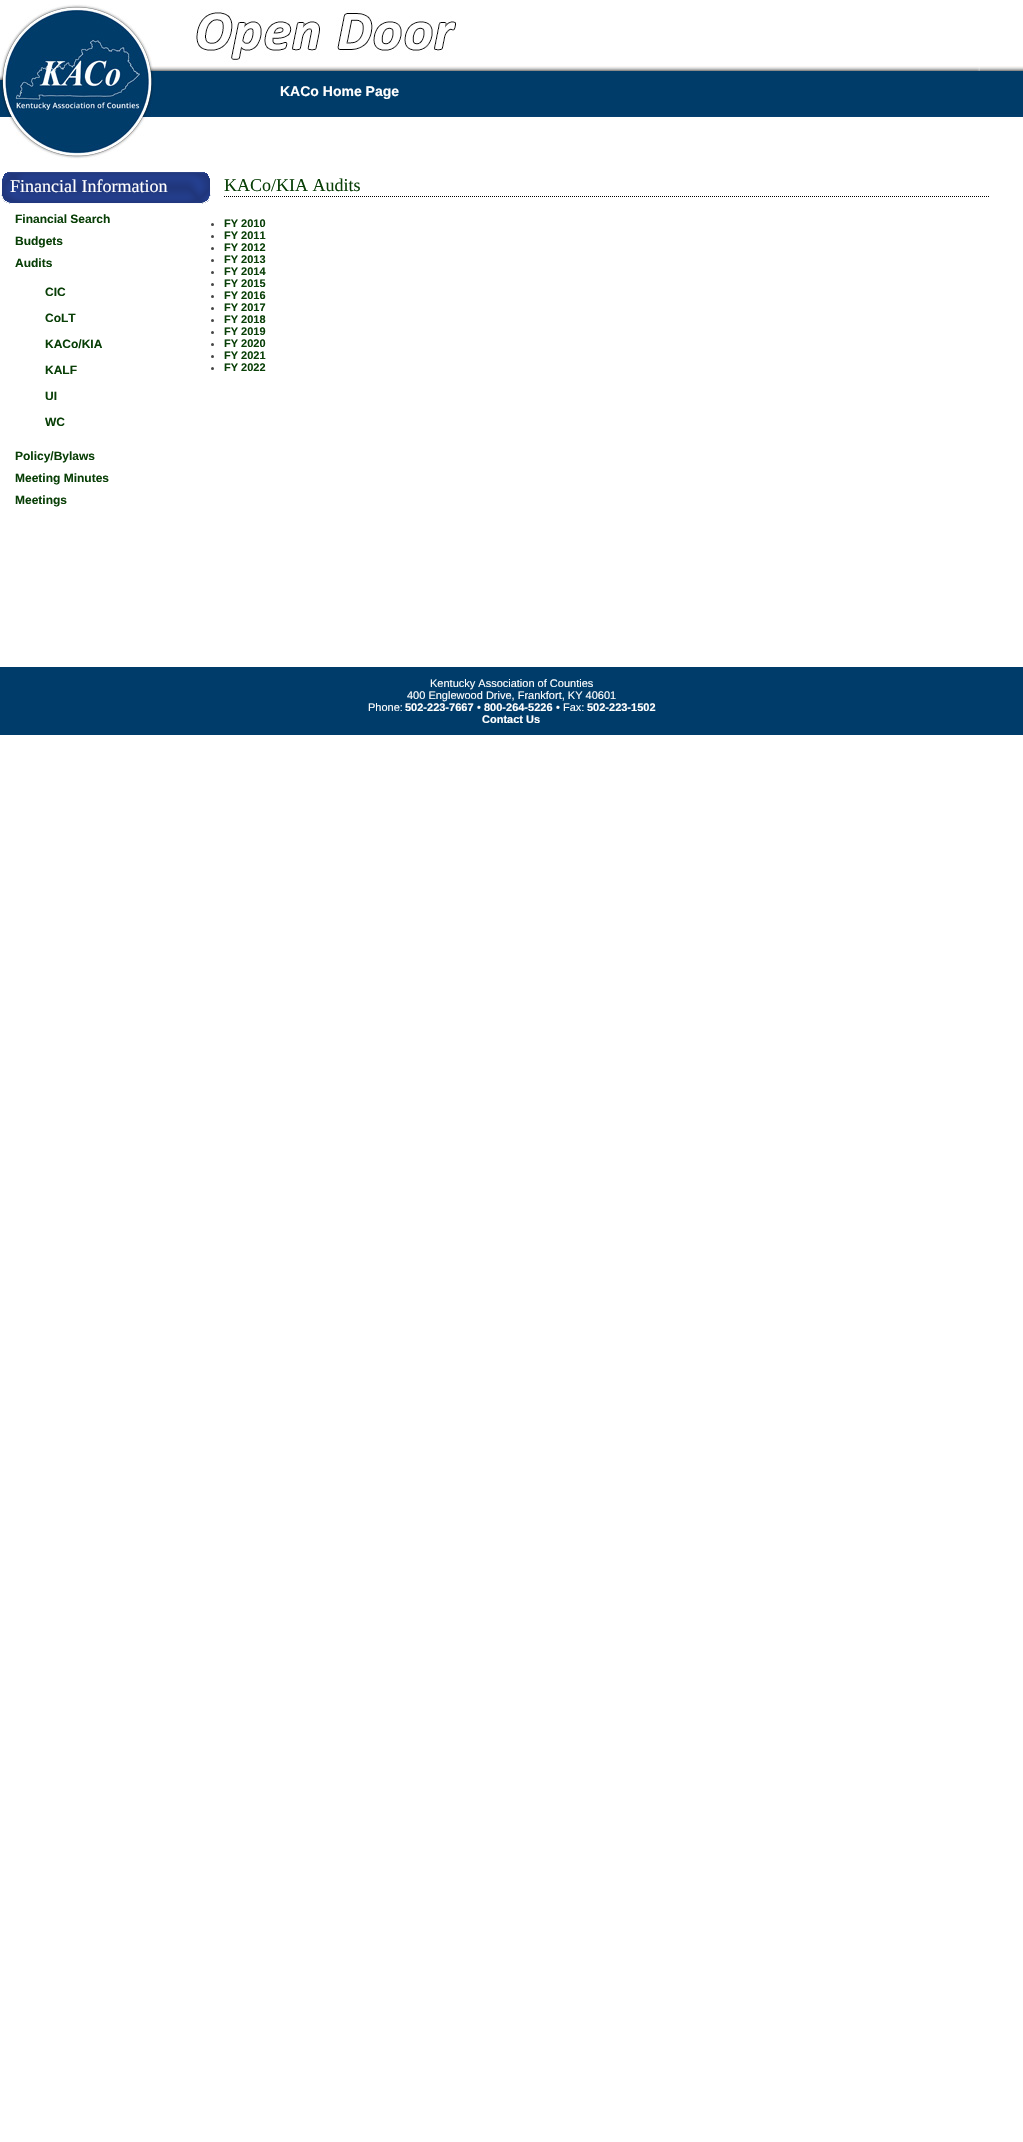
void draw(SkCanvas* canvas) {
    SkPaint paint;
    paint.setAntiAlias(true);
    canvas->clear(0xFFFFFFFF);
    canvas->drawImageRect(SkImages::DeferredFromEncodedData(SkData::MakeFromFileName("img1.png")), SkRect::MakeXYWH(980, 66, 43, 53), SkSamplingOptions());
    canvas->drawImageRect(SkImages::DeferredFromEncodedData(SkData::MakeFromFileName("img2.png")), SkRect::MakeXYWH(0, 4, 980, 156), SkSamplingOptions());
    SkFont font1(fontMgr->matchFamilyStyle("Liberation Sans", SkFontStyle::Bold()), 14);
    font1.setSubpixel(true);
    paint.setColor(0xFFFFFFFF);
    canvas->drawString("KACo Home Page", 280, 96, font1, paint);
    canvas->drawImageRect(SkImages::DeferredFromEncodedData(SkData::MakeFromFileName("img3.png")), SkRect::MakeXYWH(1, 172, 210, 32), SkSamplingOptions());
    SkFont font2(fontMgr->matchFamilyStyle("Liberation Serif", SkFontStyle::Normal()), 18);
    font2.setSubpixel(true);
    canvas->drawString("Financial Information", 10, 192, font2, paint);
    SkFont font3(fontMgr->matchFamilyStyle("Liberation Sans", SkFontStyle::Bold()), 12);
    font3.setSubpixel(true);
    paint.setColor(0xFF093F07);
    canvas->drawString("Financial Search", 15, 223, font3, paint);
    canvas->drawString("Budgets", 15, 245, font3, paint);
    canvas->drawString("Audits", 15, 267, font3, paint);
    canvas->drawString("CIC", 45, 296, font3, paint);
    canvas->drawString("CoLT", 45, 322, font3, paint);
    canvas->drawString("KACo/KIA", 45, 348, font3, paint);
    canvas->drawString("KALF", 45, 374, font3, paint);
    canvas->drawString("UI", 45, 400, font3, paint);
    canvas->drawString("WC", 45, 426, font3, paint);
    canvas->drawString("Policy/Bylaws", 15, 460, font3, paint);
    canvas->drawString("Meeting Minutes", 15, 482, font3, paint);
    canvas->drawString("Meetings", 15, 504, font3, paint);
    paint.setStyle(SkPaint::kStroke_Style);
    paint.setStrokeWidth(1);
    paint.setColor(0xFF000000);
    paint.setPathEffect(SkDashPathEffect::Make({{1, 1}}, 0));
    canvas->drawPath(SkPathBuilder().moveTo(224, 196.5f).lineTo(989, 196.5f).detach(), paint);
    paint.setPathEffect(nullptr);
    paint.setStyle(SkPaint::kFill_Style);
    paint.setColor(0xFF093F07);
    canvas->drawString("KACo/KIA Audits", 224, 191, font2, paint);
    paint.setColor(0xFF464646);
    canvas->drawCircle(212.5f, 224.5f, 1.5f, paint);
    SkFont font4(fontMgr->matchFamilyStyle("Liberation Sans", SkFontStyle::Bold()), 11);
    font4.setSubpixel(true);
    paint.setColor(0xFF093F07);
    canvas->drawString("FY 2010", 224, 227, font4, paint);
    paint.setColor(0xFF464646);
    canvas->drawCircle(212.5f, 236.5f, 1.5f, paint);
    paint.setColor(0xFF093F07);
    canvas->drawString("FY 2011", 224, 239, font4, paint);
    paint.setColor(0xFF464646);
    canvas->drawCircle(212.5f, 248.5f, 1.5f, paint);
    paint.setColor(0xFF093F07);
    canvas->drawString("FY 2012", 224, 251, font4, paint);
    paint.setColor(0xFF464646);
    canvas->drawCircle(212.5f, 260.5f, 1.5f, paint);
    paint.setColor(0xFF093F07);
    canvas->drawString("FY 2013", 224, 263, font4, paint);
    paint.setColor(0xFF464646);
    canvas->drawCircle(212.5f, 272.5f, 1.5f, paint);
    paint.setColor(0xFF093F07);
    canvas->drawString("FY 2014", 224, 275, font4, paint);
    paint.setColor(0xFF464646);
    canvas->drawCircle(212.5f, 284.5f, 1.5f, paint);
    paint.setColor(0xFF093F07);
    canvas->drawString("FY 2015", 224, 287, font4, paint);
    paint.setColor(0xFF464646);
    canvas->drawCircle(212.5f, 296.5f, 1.5f, paint);
    paint.setColor(0xFF093F07);
    canvas->drawString("FY 2016", 224, 299, font4, paint);
    paint.setColor(0xFF464646);
    canvas->drawCircle(212.5f, 308.5f, 1.5f, paint);
    paint.setColor(0xFF093F07);
    canvas->drawString("FY 2017", 224, 311, font4, paint);
    paint.setColor(0xFF464646);
    canvas->drawCircle(212.5f, 320.5f, 1.5f, paint);
    paint.setColor(0xFF093F07);
    canvas->drawString("FY 2018", 224, 323, font4, paint);
    paint.setColor(0xFF464646);
    canvas->drawCircle(212.5f, 332.5f, 1.5f, paint);
    paint.setColor(0xFF093F07);
    canvas->drawString("FY 2019", 224, 335, font4, paint);
    paint.setColor(0xFF464646);
    canvas->drawCircle(212.5f, 344.5f, 1.5f, paint);
    paint.setColor(0xFF093F07);
    canvas->drawString("FY 2020", 224, 347, font4, paint);
    paint.setColor(0xFF464646);
    canvas->drawCircle(212.5f, 356.5f, 1.5f, paint);
    paint.setColor(0xFF093F07);
    canvas->drawString("FY 2021", 224, 359, font4, paint);
    paint.setColor(0xFF464646);
    canvas->drawCircle(212.5f, 368.5f, 1.5f, paint);
    paint.setColor(0xFF093F07);
    canvas->drawString("FY 2022", 224, 371, font4, paint);
    paint.setColor(0xFF003C6A);
    canvas->drawRect(SkRect::MakeXYWH(0, 667, 1023, 68), paint);
    SkFont font5(fontMgr->matchFamilyStyle("Liberation Sans", SkFontStyle::Normal()), 11);
    font5.setSubpixel(true);
    paint.setColor(0xFFFFFFFF);
    canvas->drawString("Kentucky Association of Counties", 430, 687, font5, paint);
    canvas->drawString("400 Englewood Drive, Frankfort, KY 40601", 407, 699, font5, paint);
    canvas->drawString("Phone:", 368, 711, font5, paint);
    canvas->drawString("502-223-7667", 405, 711, font4, paint);
    canvas->drawString("•", 477, 711, font5, paint);
    canvas->drawString("800-264-5226", 484, 711, font4, paint);
    canvas->drawString("• Fax:", 556, 711, font5, paint);
    canvas->drawString("502-223-1502", 587, 711, font4, paint);
    canvas->drawString("Contact Us", 482, 723, font4, paint);
}
